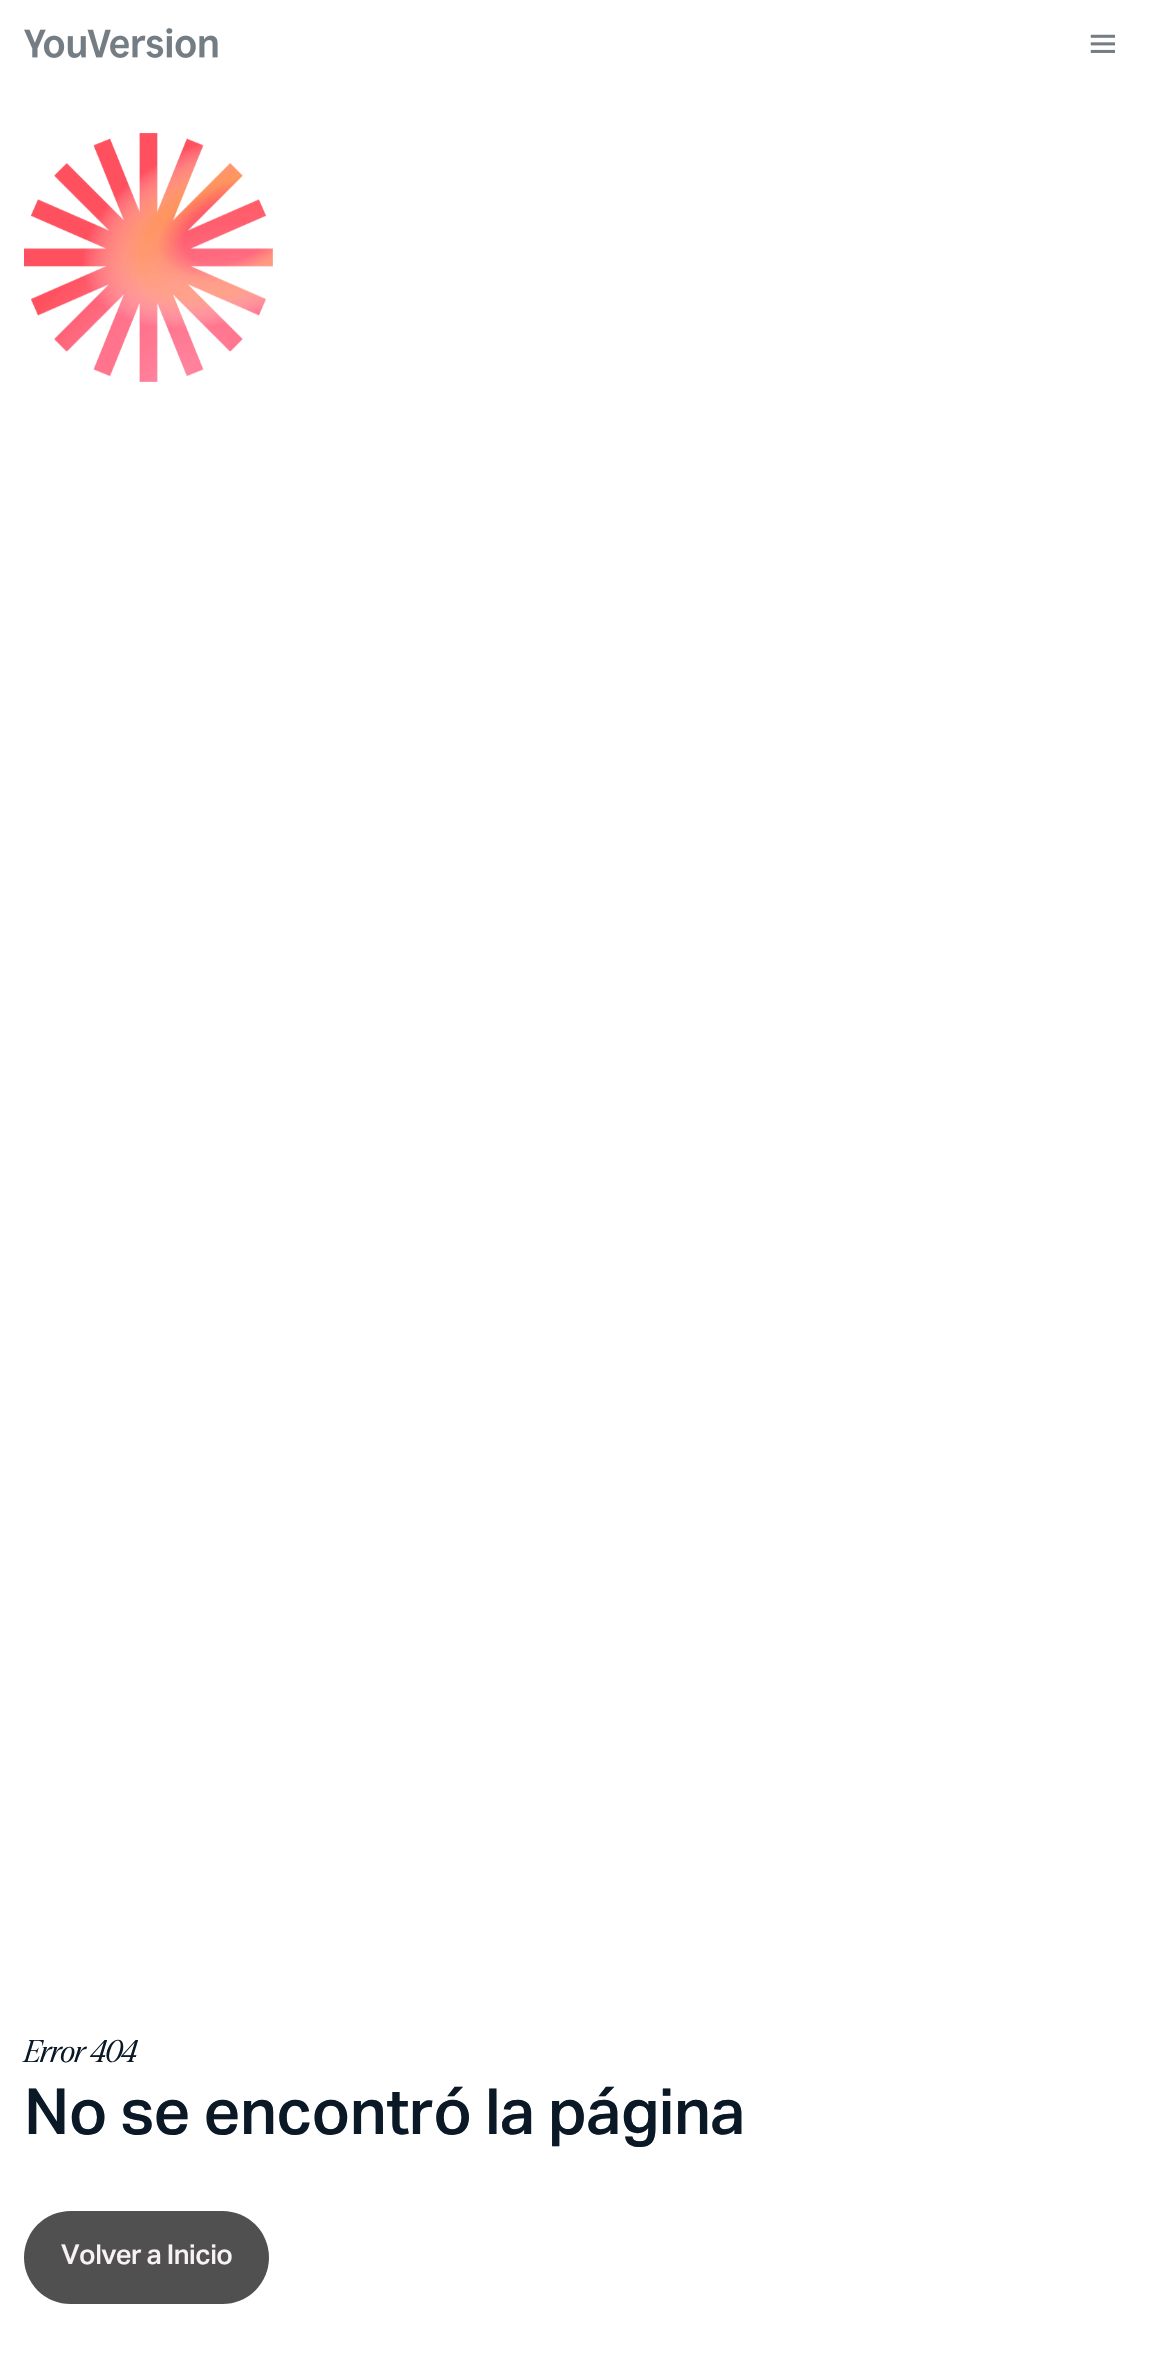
void draw(SkCanvas* canvas) {
    SkPaint paint;
    paint.setAntiAlias(true);
    auto spacedText = [&](const char* s, float x, float y, const SkFont& font, const SkPaint& ink, float letter, float word) {
        std::vector<SkGlyphID> glyphs(font.countText(s, strlen(s), SkTextEncoding::kUTF8));
        std::vector<float> xs(glyphs.size());
        font.textToGlyphs(s, strlen(s), SkTextEncoding::kUTF8, glyphs);
        font.getXPos(glyphs, xs, x);
        float extra = 0;
        for (size_t i = 0; i < glyphs.size(); i++) {
            xs[i] += extra;
            extra += letter + word * (glyphs[i] == font.unicharToGlyph(' '));
        }
        canvas->drawTextBlob(SkTextBlob::MakeFromPosHGlyphs(glyphs, xs, y, font), 0, 0, ink);
    };
    canvas->clear(0xFFFFFFFF);
    canvas->drawImageRect(SkImages::DeferredFromEncodedData(SkData::MakeFromFileName("img1.png")), SkRect::MakeXYWH(24, 28, 194, 30), SkSamplingOptions());
    canvas->drawImageRect(SkImages::DeferredFromEncodedData(SkData::MakeFromFileName("img2.png")), SkRect::MakeXYWH(1090, 34, 25, 19), SkSamplingOptions());
    canvas->drawImageRect(SkImages::DeferredFromEncodedData(SkData::MakeFromFileName("img3.png")), SkRect::MakeXYWH(24, 133, 249, 249), SkSamplingOptions());
    SkFont font1(fontMgr->matchFamilyStyle("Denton", SkFontStyle(300, SkFontStyle::kNormal_Width, SkFontStyle::kItalic_Slant)), 30.5f);
    font1.setSubpixel(true);
    paint.setColor(0xFF0B1926);
    spacedText("Error 404", 24, 2062, font1, paint, -0.5f, 0);
    SkFont font2(fontMgr->matchFamilyStyle("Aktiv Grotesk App", SkFontStyle(500, SkFontStyle::kNormal_Width, SkFontStyle::kUpright_Slant)), 63.7f);
    font2.setSubpixel(true);
    spacedText("No se encontró la página", 24, 2134, font2, paint, -0.6f, 0);
    paint.setColor(0xFF505050);
    canvas->drawRoundRect(SkRect::MakeXYWH(24, 2211, 245, 93), 46.5f, 46.5f, paint);
    SkFont font3(fontMgr->matchFamilyStyle("Aktiv Grotesk App", SkFontStyle(500, SkFontStyle::kNormal_Width, SkFontStyle::kUpright_Slant)), 27.25f);
    font3.setSubpixel(true);
    paint.setColor(0xFFF8F3F2);
    spacedText("Volver a Inicio", 61, 2264, font3, paint, -0.5f, 0);
}
